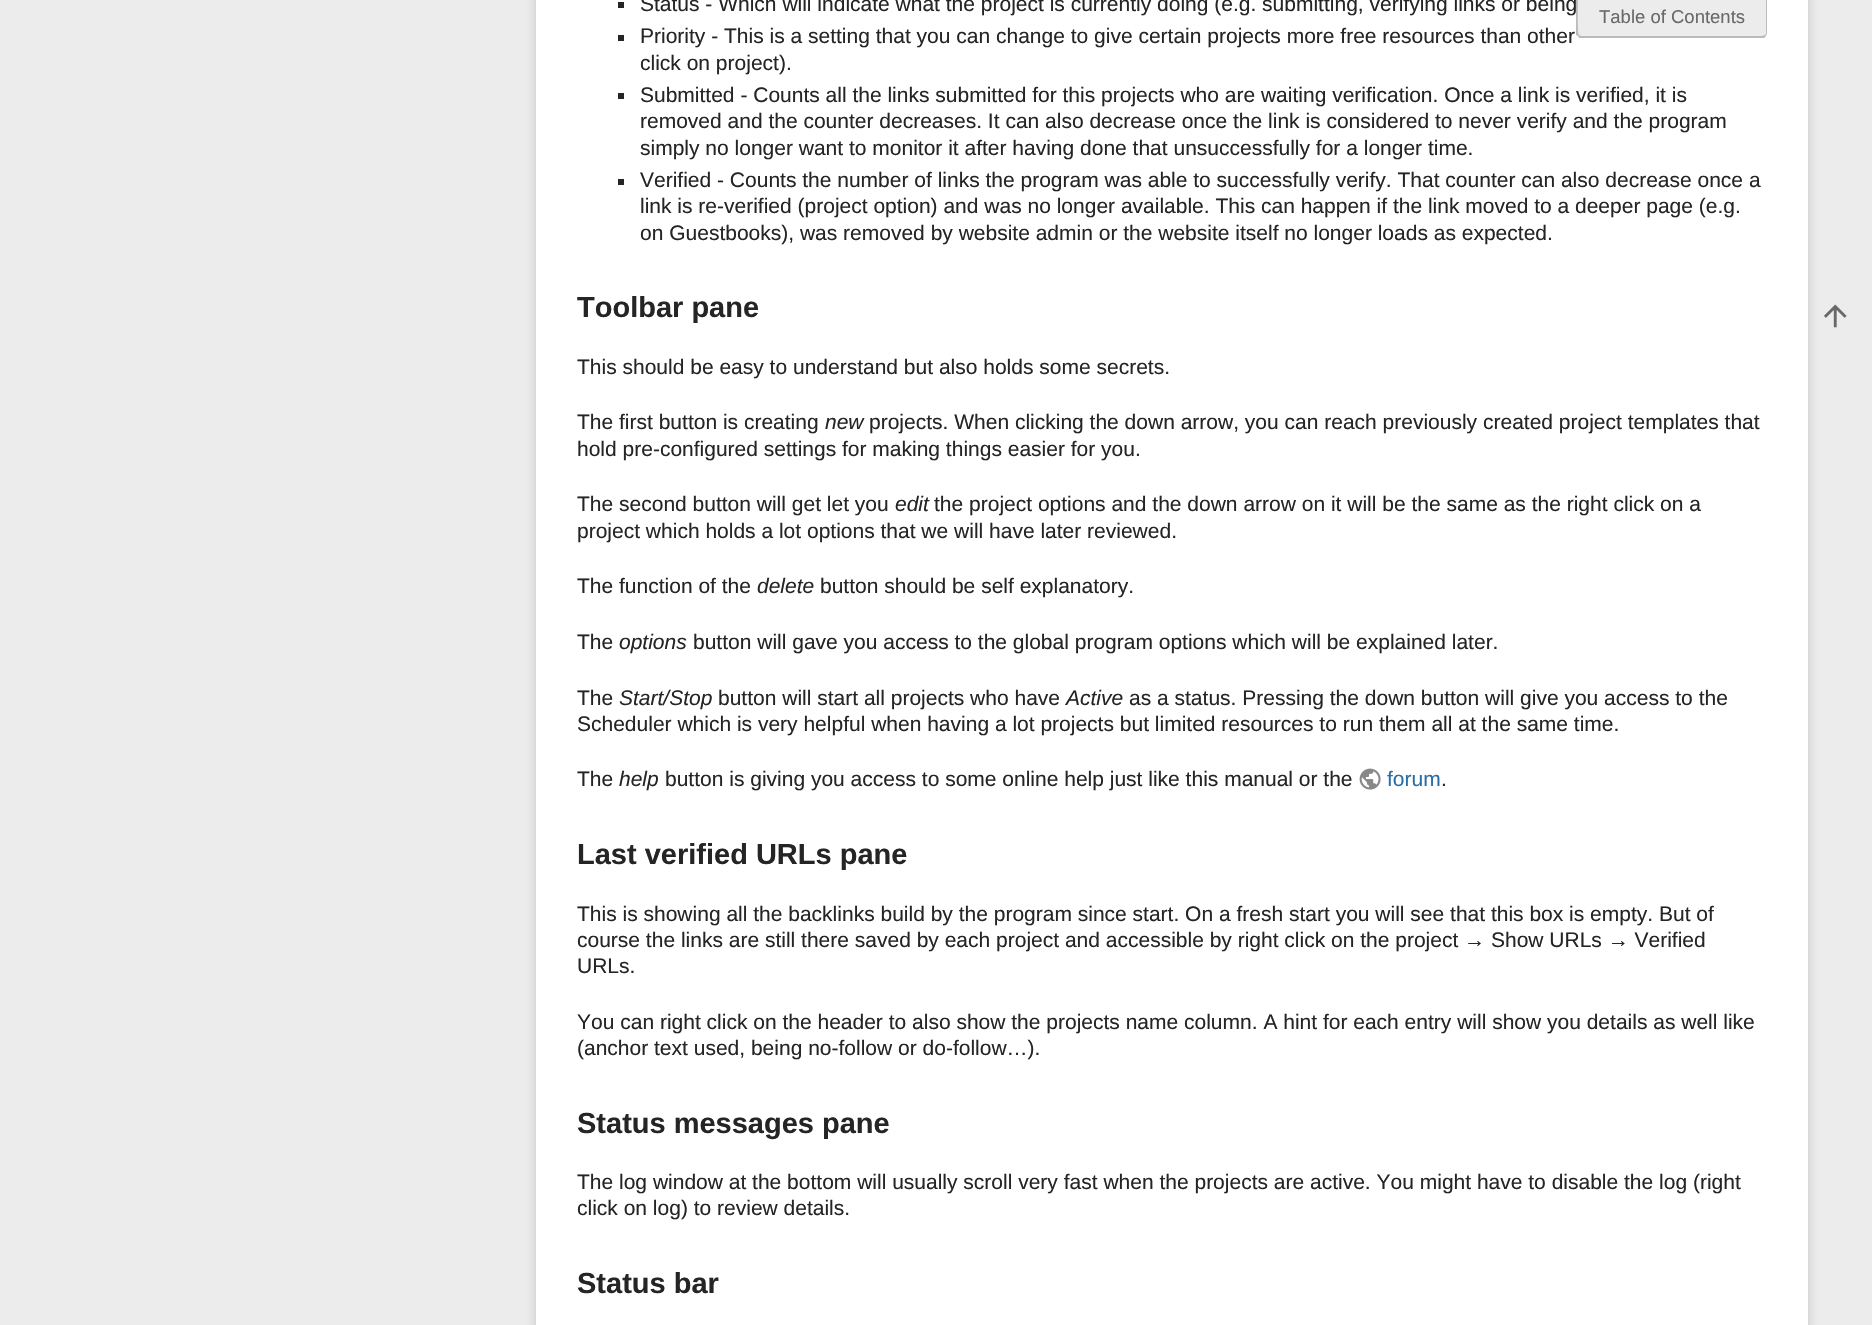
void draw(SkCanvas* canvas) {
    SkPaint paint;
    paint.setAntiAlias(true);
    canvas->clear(0xFFECECEC);
    paint.setColor(0x80999999);
    paint.setMaskFilter(SkMaskFilter::MakeBlur(kNormal_SkBlurStyle, 5.5f));
    canvas->drawRoundRect(SkRect::MakeXYWH(536, -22, 1272, 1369), 5, 5, paint);
    paint.setMaskFilter(nullptr);
    paint.setColor(0xFFFFFFFF);
    canvas->drawRect(SkRect::MakeXYWH(536, 0, 1272, 1325), paint);
    paint.setColor(0xFF252525);
    canvas->drawRect(SkRect::MakeXYWH(618, 2, 6, 6), paint);
    SkFont font1(fontMgr->matchFamilyStyle("Liberation Sans", SkFontStyle::Normal()), 21);
    font1.setSubpixel(true);
    canvas->drawString("Status - Which will indicate what the project is currently doing (e.g. submitting, verifying links or being", 640, 11, font1, paint);
    canvas->drawRect(SkRect::MakeXYWH(618, 35, 6, 6), paint);
    canvas->drawString("Priority - This is a setting that you can change to give certain projects more free resources than other", 640, 43, font1, paint);
    canvas->drawString("click on project).", 640, 70, font1, paint);
    canvas->drawRect(SkRect::MakeXYWH(618, 93, 6, 6), paint);
    canvas->drawString("Submitted - Counts all the links submitted for this projects who are waiting verification. Once a link is verified, it is", 640, 102, font1, paint);
    canvas->drawString("removed and the counter decreases. It can also decrease once the link is considered to never verify and the program", 640, 128, font1, paint);
    canvas->drawString("simply no longer want to monitor it after having done that unsuccessfully for a longer time.", 640, 155, font1, paint);
    canvas->drawRect(SkRect::MakeXYWH(618, 179, 6, 6), paint);
    canvas->drawString("Verified - Counts the number of links the program was able to successfully verify. That counter can also decrease once a", 640, 187, font1, paint);
    canvas->drawString("link is re-verified (project option) and was no longer available. This can happen if the link moved to a deeper page (e.g.", 640, 213, font1, paint);
    canvas->drawString("on Guestbooks), was removed by website admin or the website itself no longer loads as expected.", 640, 240, font1, paint);
    paint.setColor(0xFFECECEC);
    canvas->drawPath(SkPathBuilder().moveTo(1577, -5).lineTo(1767, -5).lineTo(1767, 33).cubicTo(1767, 36, 1765, 38, 1762, 38).lineTo(1582, 38).cubicTo(1579, 38, 1577, 36, 1577, 33).close().detach(), paint);
    paint.setColor(0xFFBBBBBB);
    canvas->drawPath(SkPathBuilder().moveTo(1767, -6).lineTo(1765, -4).lineTo(1766, -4).lineTo(1766, 34).lineTo(1765, 35).lineTo(1766, 36).lineTo(1767, 33).close().detach(), paint);
    canvas->drawPath(SkPathBuilder().moveTo(1579, 38).lineTo(1578, 36).lineTo(1579, 35).lineTo(1581, 36).lineTo(1762, 36).lineTo(1765, 35).lineTo(1766, 36).lineTo(1764, 38).close().detach(), paint);
    canvas->drawPath(SkPathBuilder().moveTo(1578, -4).cubicTo(1578, 1, 1577, 33, 1579, 35).lineTo(1578, 36).lineTo(1576, 35).lineTo(1576, -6).close().detach(), paint);
    SkFont font2(fontMgr->matchFamilyStyle("Liberation Sans", SkFontStyle::Normal()), 18.5f);
    font2.setSubpixel(true);
    paint.setColor(0xFF696969);
    canvas->drawString("Table of Contents", 1599, 23, font2, paint);
    SkFont font3(fontMgr->matchFamilyStyle("Liberation Sans", SkFontStyle::Bold()), 29);
    font3.setSubpixel(true);
    paint.setColor(0xFF252525);
    canvas->drawString("Toolbar pane", 577, 317, font3, paint);
    canvas->drawString("This should be easy to understand but also holds some secrets.", 577, 374, font1, paint);
    canvas->drawString("The first button is creating", 577, 429, font1, paint);
    SkFont font4(fontMgr->matchFamilyStyle("Liberation Sans", SkFontStyle::Italic()), 21);
    font4.setSubpixel(true);
    canvas->drawString("new", 825, 429, font4, paint);
    canvas->drawString("projects. When clicking the down arrow, you can reach previously created project templates that", 869, 429, font1, paint);
    canvas->drawString("hold pre-configured settings for making things easier for you.", 577, 456, font1, paint);
    canvas->drawString("The second button will get let you", 577, 511, font1, paint);
    canvas->drawString("edit", 895, 511, font4, paint);
    canvas->drawString("the project options and the down arrow on it will be the same as the right click on a", 934, 511, font1, paint);
    canvas->drawString("project which holds a lot options that we will have later reviewed.", 577, 538, font1, paint);
    canvas->drawString("The function of the", 577, 593, font1, paint);
    canvas->drawString("delete", 757, 593, font4, paint);
    canvas->drawString("button should be self explanatory.", 820, 593, font1, paint);
    canvas->drawString("The", 577, 649, font1, paint);
    canvas->drawString("options", 619, 649, font4, paint);
    canvas->drawString("button will gave you access to the global program options which will be explained later.", 693, 649, font1, paint);
    canvas->drawString("The", 577, 705, font1, paint);
    canvas->drawString("Start/Stop", 619, 705, font4, paint);
    canvas->drawString("button will start all projects who have", 718, 705, font1, paint);
    canvas->drawString("Active", 1066, 705, font4, paint);
    canvas->drawString("as a status. Pressing the down button will give you access to the", 1129, 705, font1, paint);
    canvas->drawString("Scheduler which is very helpful when having a lot projects but limited resources to run them all at the same time.", 577, 731, font1, paint);
    canvas->drawString("The", 577, 786, font1, paint);
    canvas->drawString("help", 619, 786, font4, paint);
    canvas->drawString("button is giving you access to some online help just like this manual or the", 665, 786, font1, paint);
    canvas->drawImageRect(SkImages::DeferredFromEncodedData(SkData::MakeFromFileName("img1.png")), SkRect::MakeXYWH(1359, 768, 22, 22), SkSamplingOptions());
    paint.setColor(0xFF286DA8);
    canvas->drawString("forum", 1387, 786, font1, paint);
    paint.setColor(0xFF252525);
    canvas->drawString(".", 1441, 786, font1, paint);
    canvas->drawString("Last verified URLs pane", 577, 864, font3, paint);
    canvas->drawString("This is showing all the backlinks build by the program since start. On a fresh start you will see that this box is empty. But of", 577, 921, font1, paint);
    canvas->drawString("course the links are still there saved by each project and accessible by right click on the project → Show URLs → Verified", 577, 947, font1, paint);
    canvas->drawString("URLs.", 577, 973, font1, paint);
    canvas->drawString("You can right click on the header to also show the projects name column. A hint for each entry will show you details as well like", 577, 1029, font1, paint);
    canvas->drawString("(anchor text used, being no-follow or do-follow…).", 577, 1055, font1, paint);
    canvas->drawString("Status messages pane", 577, 1133, font3, paint);
    canvas->drawString("The log window at the bottom will usually scroll very fast when the projects are active. You might have to disable the log (right", 577, 1189, font1, paint);
    canvas->drawString("click on log) to review details.", 577, 1215, font1, paint);
    canvas->drawString("Status bar", 577, 1293, font3, paint);
    canvas->drawImageRect(SkImages::DeferredFromEncodedData(SkData::MakeFromFileName("img2.png")), SkRect::MakeXYWH(1824, 304, 23, 24), SkSamplingOptions());
}
